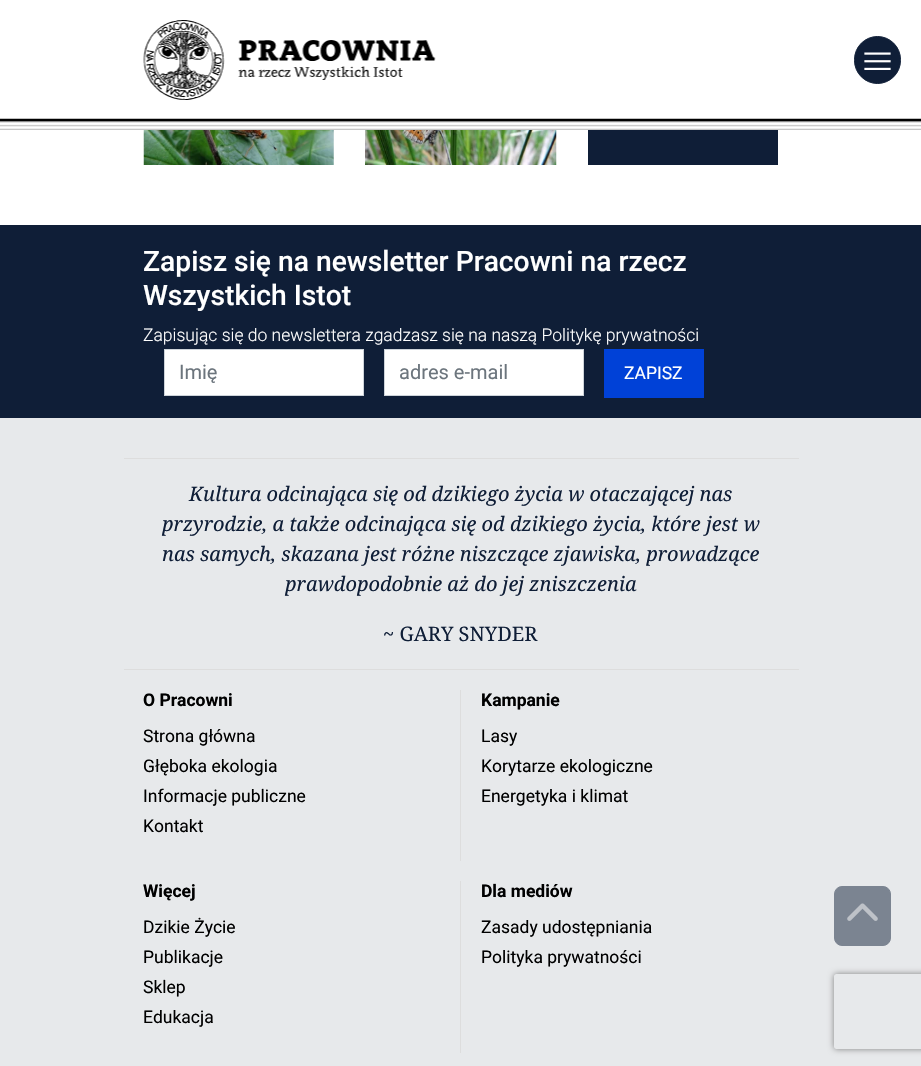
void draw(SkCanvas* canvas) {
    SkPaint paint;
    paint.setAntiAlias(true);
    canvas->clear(0xFFFFFFFF);
    canvas->drawImageRect(SkImages::DeferredFromEncodedData(SkData::MakeFromFileName("img1.png")), SkRect::MakeXYWH(0, 118, 921, 12), SkSamplingOptions());
    canvas->drawImageRect(SkImages::DeferredFromEncodedData(SkData::MakeFromFileName("img2.png")), SkRect::MakeXYWH(143, 20, 293, 80), SkSamplingOptions());
    paint.setColor(0xFF0F1E37);
    canvas->drawRoundRect(SkRect::MakeXYWH(854.5f, 36.5f, 46, 47), 23, 23, paint);
    paint.setStyle(SkPaint::kStroke_Style);
    paint.setStrokeWidth(1);
    canvas->drawRoundRect(SkRect::MakeXYWH(854.5f, 36.5f, 46, 47), 23, 23, paint);
    canvas->drawImageRect(SkImages::DeferredFromEncodedData(SkData::MakeFromFileName("img3.png")), SkRect::MakeXYWH(864, 52, 27, 18), SkSamplingOptions());
    canvas->drawImageRect(SkImages::DeferredFromEncodedData(SkData::MakeFromFileName("img4.png")), SkRect::MakeXYWH(143, 130, 191, 35), SkSamplingOptions());
    canvas->drawImageRect(SkImages::DeferredFromEncodedData(SkData::MakeFromFileName("img5.png")), SkRect::MakeXYWH(365, 130, 192, 35), SkSamplingOptions());
    paint.setStyle(SkPaint::kFill_Style);
    canvas->drawRect(SkRect::MakeXYWH(588, 130, 190, 35), paint);
    paint.setColor(0xFFE7E9EB);
    canvas->drawRect(SkRect::MakeXYWH(0, 418, 921, 648), paint);
    paint.setColor(0xFF0F1E37);
    canvas->drawRect(SkRect::MakeXYWH(0, 225, 921, 193), paint);
    SkFont font1(fontMgr->matchFamilyStyle("Roboto", SkFontStyle(500, SkFontStyle::kNormal_Width, SkFontStyle::kUpright_Slant)), 28.25f);
    font1.setSubpixel(true);
    paint.setColor(0xFFFFFFFF);
    canvas->drawString("Zapisz się na newsletter Pracowni na rzecz", 143, 271, font1, paint);
    canvas->drawString("Wszystkich Istot", 143, 305, font1, paint);
    SkFont font2(fontMgr->matchFamilyStyle("Roboto", SkFontStyle(300, SkFontStyle::kNormal_Width, SkFontStyle::kUpright_Slant)), 17.5f);
    font2.setSubpixel(true);
    canvas->drawString("Zapisując się do newslettera zgadzasz się na naszą Politykę prywatności", 143, 341, font2, paint);
    canvas->drawRect(SkRect::MakeXYWH(164.5f, 349.5f, 199, 46), paint);
    paint.setStyle(SkPaint::kStroke_Style);
    paint.setColor(0xFFCED4DA);
    canvas->drawRect(SkRect::MakeXYWH(164.5f, 349.5f, 199, 46), paint);
    SkFont font3(fontMgr->matchFamilyStyle("Roboto", SkFontStyle::Normal()), 20);
    font3.setSubpixel(true);
    paint.setStyle(SkPaint::kFill_Style);
    paint.setColor(0xFF6C757D);
    canvas->drawString("Imię", 179, 379, font3, paint);
    paint.setColor(0xFFFFFFFF);
    canvas->drawRect(SkRect::MakeXYWH(384.5f, 349.5f, 199, 46), paint);
    paint.setStyle(SkPaint::kStroke_Style);
    paint.setColor(0xFFCED4DA);
    canvas->drawRect(SkRect::MakeXYWH(384.5f, 349.5f, 199, 46), paint);
    paint.setStyle(SkPaint::kFill_Style);
    paint.setColor(0xFF6C757D);
    canvas->drawString("adres e-mail", 399, 379, font3, paint);
    paint.setColor(0xFF0041D7);
    canvas->drawRect(SkRect::MakeXYWH(604, 349, 100, 49), paint);
    SkFont font4(fontMgr->matchFamilyStyle("Roboto", SkFontStyle::Normal()), 17.5f);
    font4.setSubpixel(true);
    paint.setColor(0xFFFFFFFF);
    canvas->drawString("ZAPISZ", 624, 379, font4, paint);
    paint.setColor(0xFFDDDDDD);
    canvas->drawRect(SkRect::MakeXYWH(124, 458, 675, 1), paint);
    SkFont font5(fontMgr->matchFamilyStyle("Noto Serif", SkFontStyle::Italic()), 20);
    font5.setSubpixel(true);
    paint.setColor(0xFF0F1E37);
    canvas->drawString("Kultura odcinająca się od dzikiego życia w otaczającej nas", 189, 501, font5, paint);
    canvas->drawString("przyrodzie, a także odcinająca się od dzikiego życia, które jest w", 162, 531, font5, paint);
    canvas->drawString("nas samych, skazana jest różne niszczące zjawiska, prowadzące", 162, 561, font5, paint);
    canvas->drawString("prawdopodobnie aż do jej zniszczenia", 285, 591, font5, paint);
    SkFont font6(fontMgr->matchFamilyStyle("Noto Serif", SkFontStyle::Normal()), 20);
    font6.setSubpixel(true);
    canvas->drawString("~ GARY SNYDER", 383, 641, font6, paint);
    paint.setColor(0xFFDDDDDD);
    canvas->drawRect(SkRect::MakeXYWH(124, 669, 675, 1), paint);
    canvas->drawRect(SkRect::MakeXYWH(460, 690, 1, 171), paint);
    SkFont font7(fontMgr->matchFamilyStyle("Roboto", SkFontStyle::Bold()), 17.5f);
    font7.setSubpixel(true);
    paint.setColor(0xFF000000);
    canvas->drawString("O Pracowni", 143, 706, font7, paint);
    canvas->drawString("Strona główna", 143, 742, font4, paint);
    canvas->drawString("Głęboka ekologia", 143, 772, font4, paint);
    canvas->drawString("Informacje publiczne", 143, 802, font4, paint);
    canvas->drawString("Kontakt", 143, 832, font4, paint);
    canvas->drawString("Kampanie", 481, 706, font7, paint);
    canvas->drawString("Lasy", 481, 742, font4, paint);
    canvas->drawString("Korytarze ekologiczne", 481, 772, font4, paint);
    canvas->drawString("Energetyka i klimat", 481, 802, font4, paint);
    paint.setColor(0xFFDDDDDD);
    canvas->drawRect(SkRect::MakeXYWH(460, 881, 1, 172), paint);
    paint.setColor(0xFF000000);
    canvas->drawString("Więcej", 143, 897, font7, paint);
    canvas->drawString("Dzikie Życie", 143, 933, font4, paint);
    canvas->drawString("Publikacje", 143, 963, font4, paint);
    canvas->drawString("Sklep", 143, 993, font4, paint);
    canvas->drawString("Edukacja", 143, 1023, font4, paint);
    canvas->drawString("Dla mediów", 481, 897, font7, paint);
    canvas->drawString("Zasady udostępniania", 481, 933, font4, paint);
    canvas->drawString("Polityka prywatności", 481, 963, font4, paint);
    paint.setColor(0xFF7B8491);
    canvas->drawRoundRect(SkRect::MakeXYWH(834.5f, 886.5f, 56, 59), 7.5f, 7.5f, paint);
    paint.setStyle(SkPaint::kStroke_Style);
    canvas->drawRoundRect(SkRect::MakeXYWH(834.5f, 886.5f, 56, 59), 7.5f, 7.5f, paint);
    canvas->drawImageRect(SkImages::DeferredFromEncodedData(SkData::MakeFromFileName("img6.png")), SkRect::MakeXYWH(847, 903, 31, 18), SkSamplingOptions());
    canvas->save();
    canvas->clipPath(SkPathBuilder(SkPathFillType::kEvenOdd).moveTo(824, 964).lineTo(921, 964).lineTo(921, 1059).lineTo(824, 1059).close().moveTo(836.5f, 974).lineTo(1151.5f, 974).cubicTo(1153, 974, 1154, 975, 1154, 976.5f).lineTo(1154, 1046.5f).cubicTo(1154, 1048, 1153, 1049, 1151.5f, 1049).lineTo(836.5f, 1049).cubicTo(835, 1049, 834, 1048, 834, 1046.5f).lineTo(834, 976.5f).cubicTo(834, 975, 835, 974, 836.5f, 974).close().detach(), true);
    paint.setStyle(SkPaint::kFill_Style);
    paint.setColor(0xFF808080);
    paint.setMaskFilter(SkMaskFilter::MakeBlur(kNormal_SkBlurStyle, 3));
    canvas->drawRoundRect(SkRect::MakeXYWH(834, 974, 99, 75), 2.5f, 2.5f, paint);
    paint.setMaskFilter(nullptr);
    canvas->restore();
}
